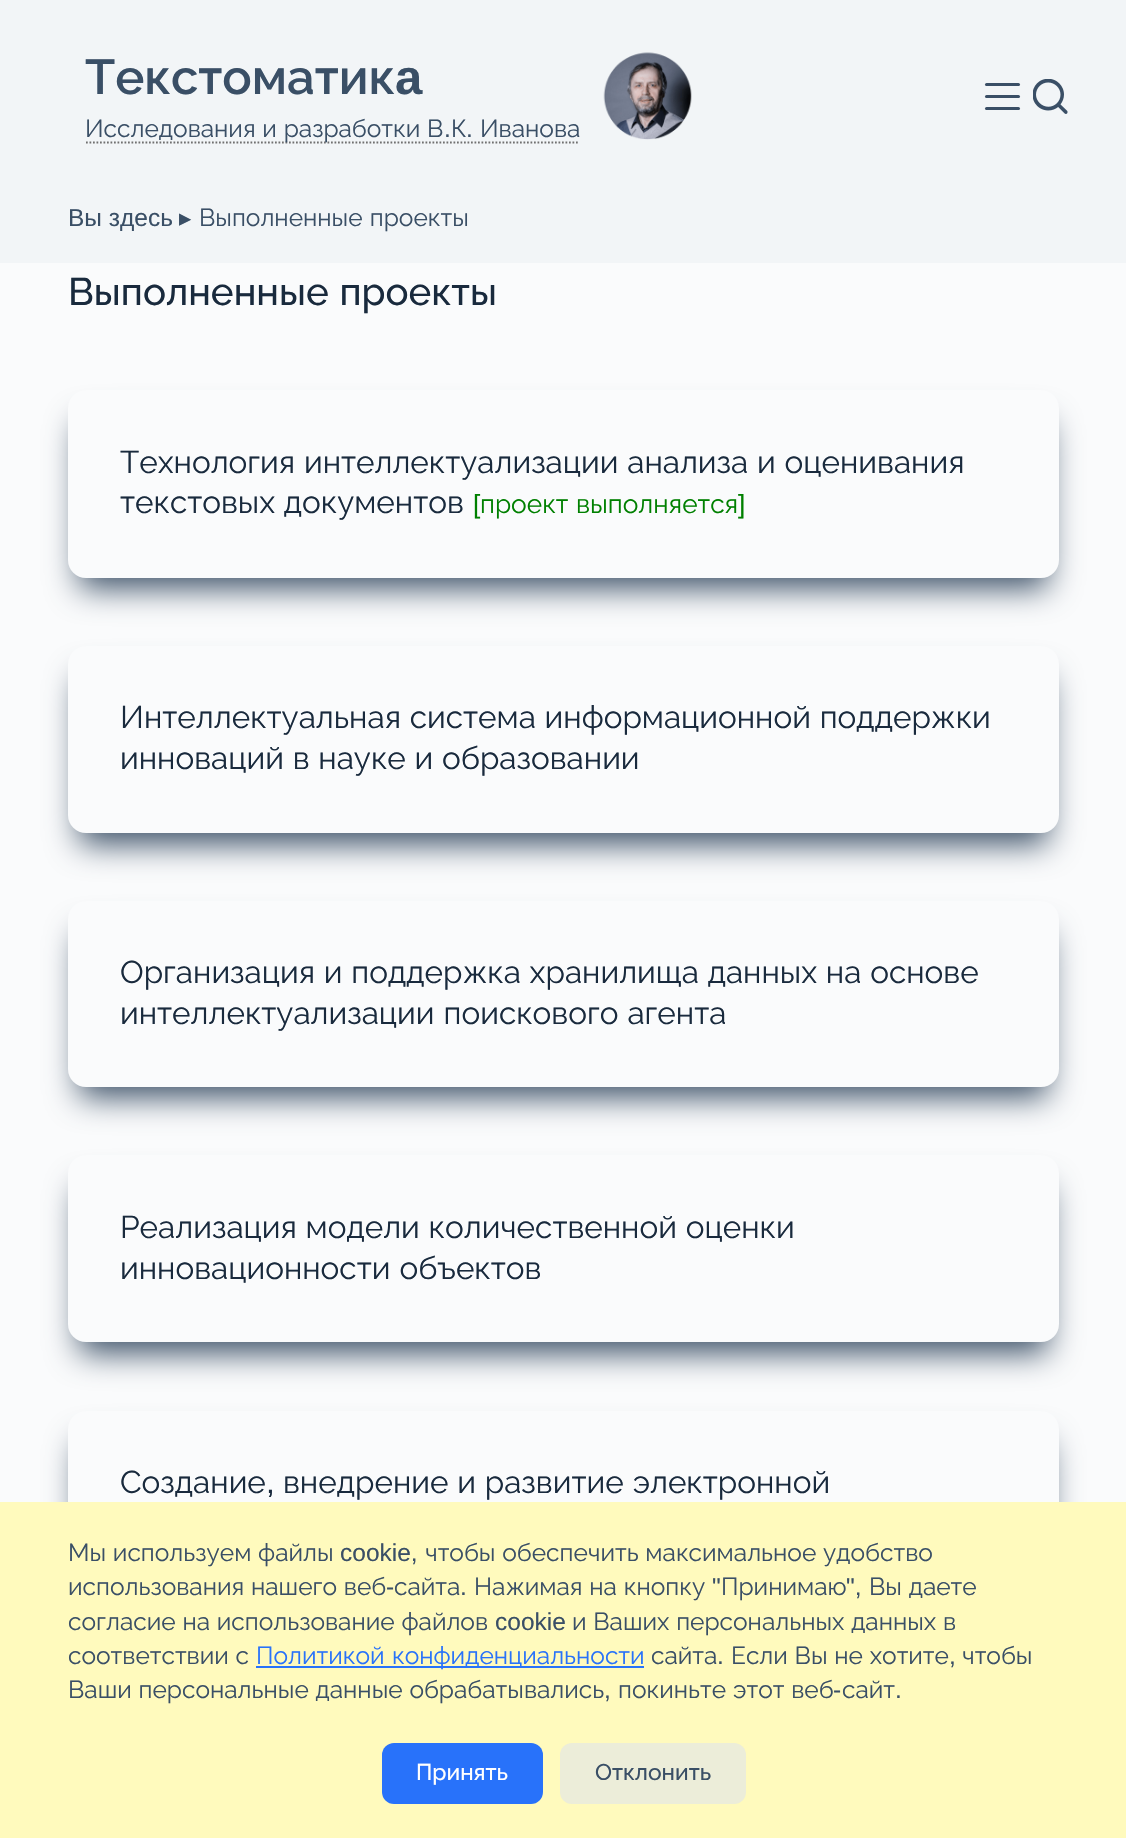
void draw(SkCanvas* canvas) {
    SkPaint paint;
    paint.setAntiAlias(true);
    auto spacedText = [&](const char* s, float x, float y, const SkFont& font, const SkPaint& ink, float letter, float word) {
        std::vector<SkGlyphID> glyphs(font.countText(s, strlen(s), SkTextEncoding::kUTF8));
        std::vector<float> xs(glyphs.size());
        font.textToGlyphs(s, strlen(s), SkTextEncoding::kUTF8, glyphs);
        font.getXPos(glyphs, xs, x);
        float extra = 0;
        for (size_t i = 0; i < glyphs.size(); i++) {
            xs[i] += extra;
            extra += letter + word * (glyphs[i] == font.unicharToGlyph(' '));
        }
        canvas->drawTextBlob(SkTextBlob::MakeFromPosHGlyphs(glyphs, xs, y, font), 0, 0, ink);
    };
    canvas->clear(0xFFFAFBFC);
    paint.setColor(0xFFF2F5F7);
    canvas->drawRect(SkRect::MakeXYWH(0, 0, 1126, 263), paint);
    SkFont font1(fontMgr->matchFamilyStyle("Raleway", SkFontStyle(600, SkFontStyle::kNormal_Width, SkFontStyle::kUpright_Slant)), 49);
    font1.setSubpixel(true);
    paint.setColor(0xFF3A4F66);
    canvas->drawString("Текстоматик", 85, 94, font1, paint);
    SkFont font2(fontMgr->matchFamilyStyle("Liberation Sans", SkFontStyle::Bold()), 49);
    font2.setSubpixel(true);
    canvas->drawString("a", 395, 94, font2, paint);
    paint.setStyle(SkPaint::kStroke_Style);
    paint.setStrokeWidth(1.8f);
    paint.setColor(0xFF707070);
    paint.setPathEffect(SkDashPathEffect::Make({{1.75f, 1.75f}}, 0));
    canvas->drawPath(SkPathBuilder().moveTo(86, 142.5f).lineTo(579, 142.5f).detach(), paint);
    paint.setPathEffect(nullptr);
    SkFont font3(fontMgr->matchFamilyStyle("Raleway", SkFontStyle::Normal()), 24.5f);
    font3.setSubpixel(true);
    paint.setStyle(SkPaint::kFill_Style);
    paint.setColor(0xFF3A4F66);
    spacedText("Исследования и разработки В", 85, 137, font3, paint, 0, 0.5f);
    SkFont font4(fontMgr->matchFamilyStyle("Liberation Sans", SkFontStyle::Normal()), 24.5f);
    font4.setSubpixel(true);
    canvas->drawString(".", 444, 137, font4, paint);
    canvas->drawString("К", 451, 137, font3, paint);
    canvas->drawString(".", 466, 137, font4, paint);
    canvas->drawString("Иванова", 480, 137, font3, paint);
    canvas->drawImageRect(SkImages::DeferredFromEncodedData(SkData::MakeFromFileName("img1.png")), SkRect::MakeXYWH(603, 52, 89, 88), SkSamplingOptions());
    canvas->drawRoundRect(SkRect::MakeXYWH(985, 83, 35, 3), 1.5f, 1.5f, paint);
    canvas->drawRoundRect(SkRect::MakeXYWH(985, 95, 35, 3), 1.5f, 1.5f, paint);
    canvas->drawRoundRect(SkRect::MakeXYWH(985, 107, 35, 3), 1.5f, 1.5f, paint);
    canvas->drawImageRect(SkImages::DeferredFromEncodedData(SkData::MakeFromFileName("img2.png")), SkRect::MakeXYWH(1033, 79, 35, 35), SkSamplingOptions());
    canvas->drawString("Вы здесь", 68, 226, font4, paint);
    SkFont font5(fontMgr->matchFamilyStyle("DejaVu Sans", SkFontStyle::Normal()), 24.5f);
    font5.setSubpixel(true);
    canvas->drawString("▸", 179, 226, font5, paint);
    spacedText("Выполненные проекты", 199, 226, font3, paint, 0, 1);
    SkFont font6(fontMgr->matchFamilyStyle("Raleway", SkFontStyle(500, SkFontStyle::kNormal_Width, SkFontStyle::kUpright_Slant)), 38.5f);
    font6.setSubpixel(true);
    paint.setColor(0xFF192A3D);
    spacedText("Выполненные проекты", 68, 305, font6, paint, 0, 1);
    paint.setColor(0xFF3A4F66);
    paint.setMaskFilter(SkMaskFilter::MakeBlur(kNormal_SkBlurStyle, 16));
    canvas->drawRoundRect(SkRect::MakeXYWH(79, 422, 969, 166), 7, 7, paint);
    paint.setMaskFilter(nullptr);
    paint.setColor(0xFFFAFBFC);
    canvas->drawRoundRect(SkRect::MakeXYWH(68, 390, 991, 188), 18, 18, paint);
    SkFont font7(fontMgr->matchFamilyStyle("Raleway", SkFontStyle::Normal()), 31.5f);
    font7.setSubpixel(true);
    paint.setColor(0xFF192A3D);
    spacedText("Технология интеллектуализации анализа и оценивания", 120, 473, font7, paint, 0, 0.75f);
    spacedText("текстовых документов", 120, 513, font7, paint, 0, 0.75f);
    SkFont font8(fontMgr->matchFamilyStyle("Liberation Sans", SkFontStyle::Normal()), 26.25f);
    font8.setSubpixel(true);
    paint.setColor(0xFF008000);
    canvas->drawString("[", 473, 513, font8, paint);
    SkFont font9(fontMgr->matchFamilyStyle("Raleway", SkFontStyle::Normal()), 26.25f);
    font9.setSubpixel(true);
    spacedText("проект выполняется", 480, 513, font9, paint, 0, 1);
    canvas->drawString("]", 738, 513, font8, paint);
    paint.setColor(0xFF3A4F66);
    paint.setMaskFilter(SkMaskFilter::MakeBlur(kNormal_SkBlurStyle, 16));
    canvas->drawRoundRect(SkRect::MakeXYWH(79, 677, 969, 167), 7, 7, paint);
    paint.setMaskFilter(nullptr);
    paint.setColor(0xFFFAFBFC);
    canvas->drawRoundRect(SkRect::MakeXYWH(68, 646, 991, 187), 18, 18, paint);
    paint.setColor(0xFF192A3D);
    spacedText("Интеллектуальная система информационной поддержки", 120, 728, font7, paint, 0, 0.75f);
    spacedText("инноваций в науке и образовании", 120, 769, font7, paint, 0, 0.75f);
    paint.setColor(0xFF3A4F66);
    paint.setMaskFilter(SkMaskFilter::MakeBlur(kNormal_SkBlurStyle, 16));
    canvas->drawRoundRect(SkRect::MakeXYWH(79, 933, 969, 164), 7, 7, paint);
    paint.setMaskFilter(nullptr);
    paint.setColor(0xFFFAFBFC);
    canvas->drawRoundRect(SkRect::MakeXYWH(68, 901, 991, 186), 18, 18, paint);
    paint.setColor(0xFF192A3D);
    spacedText("Организация и поддержка хранилища данных на основе", 120, 983, font7, paint, 0, 0.75f);
    spacedText("интеллектуализации поискового агента", 120, 1024, font7, paint, 0, 1);
    paint.setColor(0xFF3A4F66);
    paint.setMaskFilter(SkMaskFilter::MakeBlur(kNormal_SkBlurStyle, 16));
    canvas->drawRoundRect(SkRect::MakeXYWH(79, 1187, 969, 166), 7, 7, paint);
    paint.setMaskFilter(nullptr);
    paint.setColor(0xFFFAFBFC);
    canvas->drawRoundRect(SkRect::MakeXYWH(68, 1155, 991, 187), 18, 18, paint);
    paint.setColor(0xFF192A3D);
    spacedText("Реализация модели количественной оценки", 120, 1238, font7, paint, 0, 0.75f);
    spacedText("инновационности объектов", 120, 1279, font7, paint, 0, 1);
    paint.setColor(0xFF3A4F66);
    paint.setMaskFilter(SkMaskFilter::MakeBlur(kNormal_SkBlurStyle, 16));
    canvas->drawRoundRect(SkRect::MakeXYWH(79, 1442, 969, 166), 7, 7, paint);
    paint.setMaskFilter(nullptr);
    paint.setColor(0xFFFAFBFC);
    canvas->drawRoundRect(SkRect::MakeXYWH(68, 1411, 991, 187), 18, 18, paint);
    paint.setColor(0xFF192A3D);
    canvas->drawString("Создание", 120, 1493, font7, paint);
    SkFont font10(fontMgr->matchFamilyStyle("Liberation Sans", SkFontStyle::Normal()), 31.5f);
    font10.setSubpixel(true);
    canvas->drawString(",", 266, 1493, font10, paint);
    spacedText("внедрение и развитие электронной", 283, 1493, font7, paint, 0, 0.75f);
    paint.setColor(0xFFFFFABD);
    canvas->drawRect(SkRect::MakeXYWH(0, 1502, 1126, 336), paint);
    paint.setColor(0xFF3A4F66);
    spacedText("Мы используем файлы", 68, 1561, font3, paint, 0, 0.5f);
    canvas->drawString("cookie,", 340, 1561, font4, paint);
    spacedText("чтобы обеспечить максимальное удобство", 425, 1561, font3, paint, 0, 0.5f);
    spacedText("использования нашего веб", 68, 1595, font3, paint, 0, 0.5f);
    canvas->drawString("-", 386, 1595, font4, paint);
    canvas->drawString("сайта", 394, 1595, font3, paint);
    spacedText("Нажимая на кнопку", 474, 1595, font3, paint, 0, 0.5f);
    canvas->drawString("\"", 712, 1595, font4, paint);
    canvas->drawString("Принимаю", 721, 1595, font3, paint);
    canvas->drawString("\",", 846, 1595, font4, paint);
    spacedText("Вы даете", 869, 1595, font3, paint, 0, 0.5f);
    canvas->drawString(".", 460, 1595, font4, paint);
    spacedText("согласие на использование файлов", 68, 1630, font3, paint, 0, 0.5f);
    canvas->drawString("cookie", 495, 1630, font4, paint);
    spacedText("и Ваших персональных данных в", 572, 1630, font3, paint, 0, 0.5f);
    spacedText("соответствии с", 68, 1664, font3, paint, 0, 0.5f);
    paint.setColor(0xFF2872FA);
    canvas->drawRect(SkRect::MakeXYWH(256, 1666, 388, 2), paint);
    spacedText("Политикой конфиденциальности", 256, 1664, font3, paint, 0, 1);
    paint.setColor(0xFF3A4F66);
    canvas->drawString("сайта", 651, 1664, font3, paint);
    canvas->drawString(".", 717, 1664, font4, paint);
    spacedText("Если Вы не хотите", 731, 1664, font3, paint, 0, 0.5f);
    canvas->drawString(",", 949, 1664, font4, paint);
    canvas->drawString("чтобы", 962, 1664, font3, paint);
    spacedText("Ваши персональные данные обрабатывались", 68, 1698, font3, paint, 0, 0.5f);
    spacedText("покиньте этот веб", 618, 1698, font3, paint, 0, 0.5f);
    canvas->drawString("-", 833, 1698, font4, paint);
    canvas->drawString("сайт", 842, 1698, font3, paint);
    canvas->drawString(",", 604, 1698, font4, paint);
    canvas->drawString(".", 895, 1698, font4, paint);
    paint.setColor(0xFF2872FA);
    canvas->drawRoundRect(SkRect::MakeXYWH(382, 1743, 161, 61), 12, 12, paint);
    SkFont font11(fontMgr->matchFamilyStyle("Raleway", SkFontStyle(500, SkFontStyle::kNormal_Width, SkFontStyle::kUpright_Slant)), 22.75f);
    font11.setSubpixel(true);
    paint.setColor(0xFFFFFFFF);
    canvas->drawString("Принять", 416, 1780, font11, paint);
    paint.setColor(0xFFECEDD9);
    canvas->drawRoundRect(SkRect::MakeXYWH(560, 1743, 186, 61), 12, 12, paint);
    paint.setColor(0xFF3A4F66);
    canvas->drawString("Отклонить", 595, 1780, font11, paint);
}
